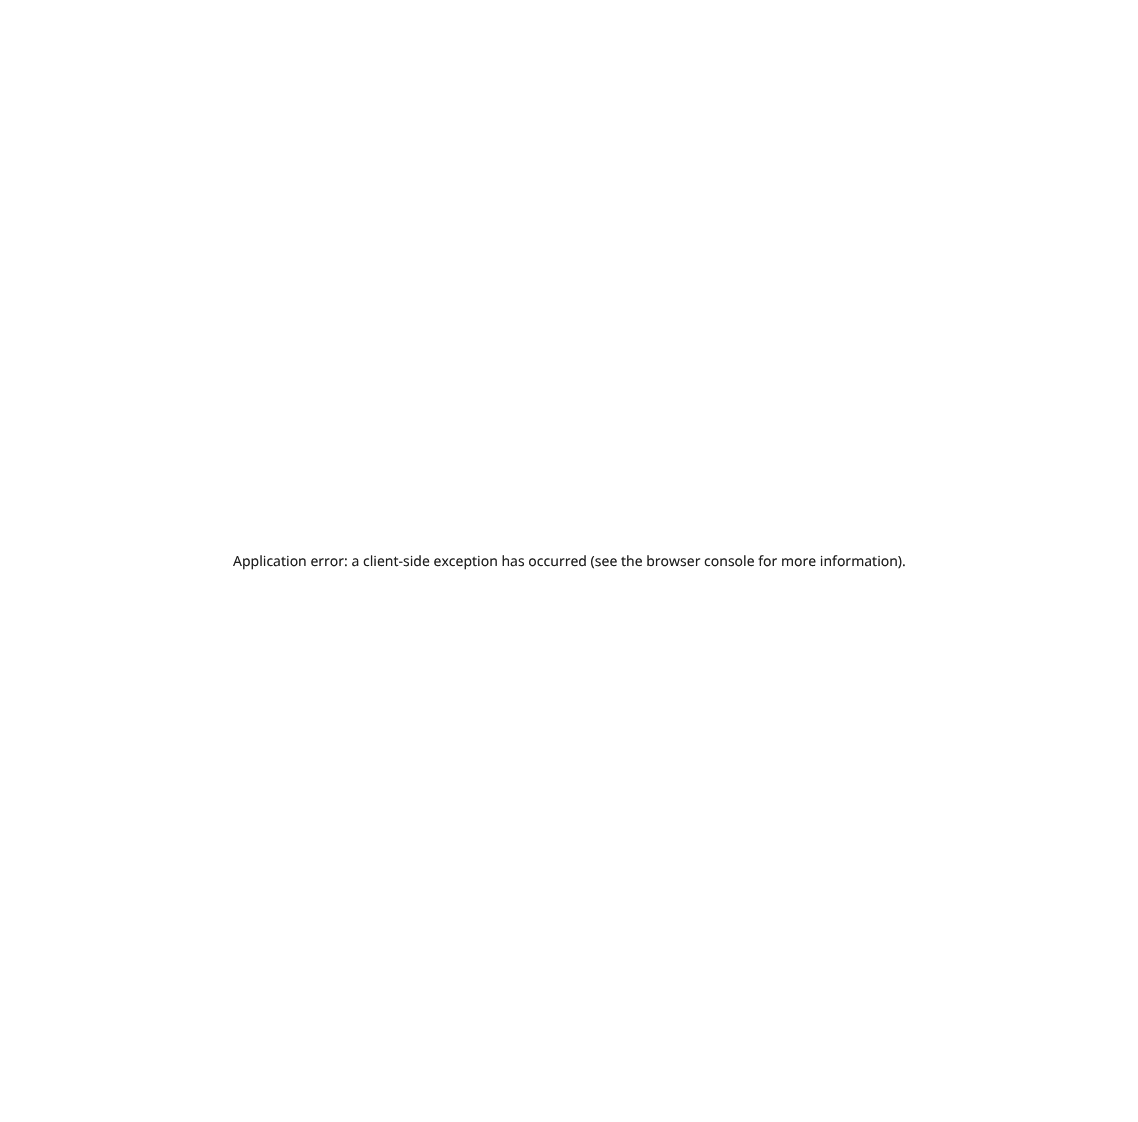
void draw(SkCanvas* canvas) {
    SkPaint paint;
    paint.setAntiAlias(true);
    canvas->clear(0xFFFFFFFF);
    SkFont font1(fontMgr->matchFamilyStyle("Noto Sans", SkFontStyle::Normal()), 14);
    font1.setSubpixel(true);
    paint.setColor(0xFF1F1F1F);
    canvas->drawString("Application error: a client-side exception has occurred (see the browser console for more information).", 233, 566, font1, paint);
}
